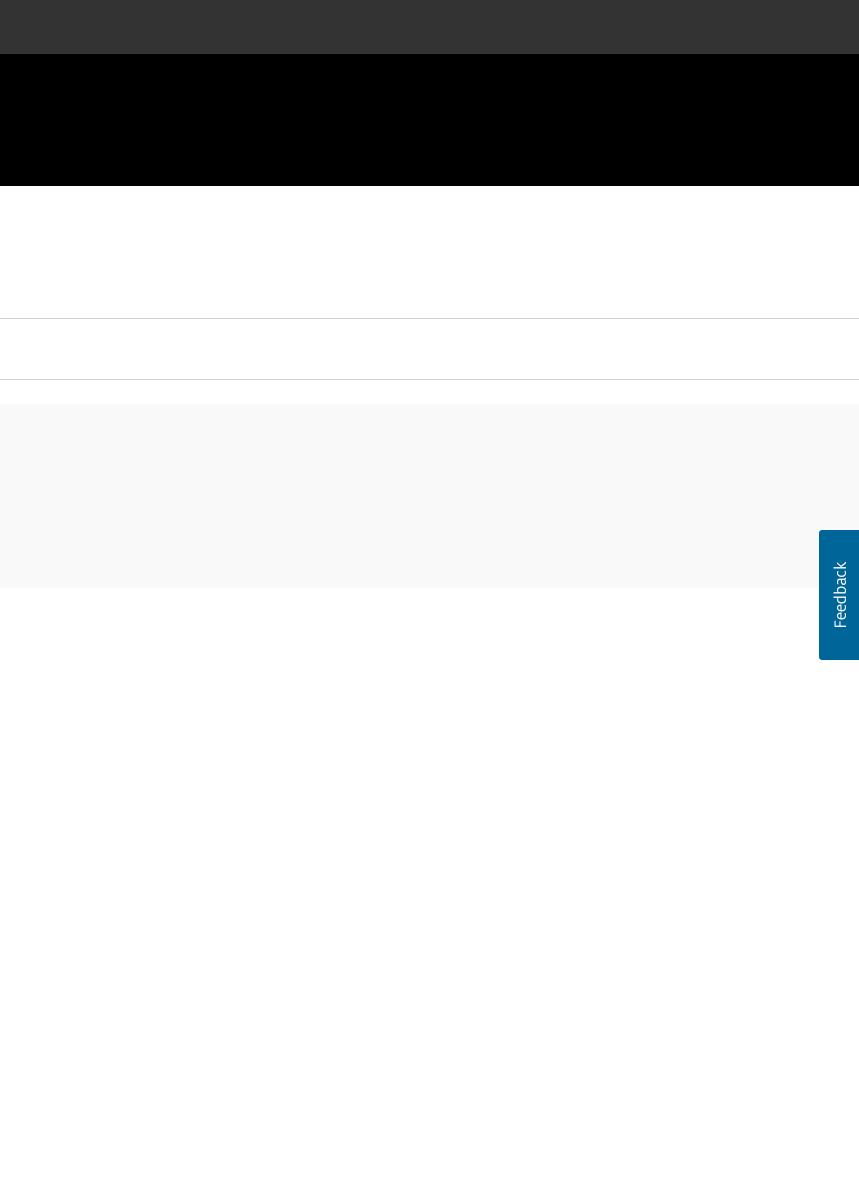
void draw(SkCanvas* canvas) {
    SkPaint paint;
    paint.setAntiAlias(true);
    canvas->clear(0xFFFFFFFF);
    paint.setColor(0xFF333333);
    canvas->drawRect(SkRect::MakeXYWH(0, 0, 859, 54), paint);
    paint.setColor(0xFF000000);
    canvas->drawRect(SkRect::MakeXYWH(0, 54, 859, 132), paint);
    paint.setColor(0xFFD4D2CE);
    canvas->drawRect(SkRect::MakeXYWH(0, 318, 859, 1), paint);
    canvas->drawRect(SkRect::MakeXYWH(0, 379, 859, 1), paint);
    paint.setColor(0xFFF9F9F9);
    canvas->drawRect(SkRect::MakeXYWH(0, 404, 859, 184), paint);
    canvas->drawImageRect(SkImages::DeferredFromEncodedData(SkData::MakeFromFileName("img1.png")), SkRect::MakeXYWH(819, 530, 40, 130), SkSamplingOptions());
}
